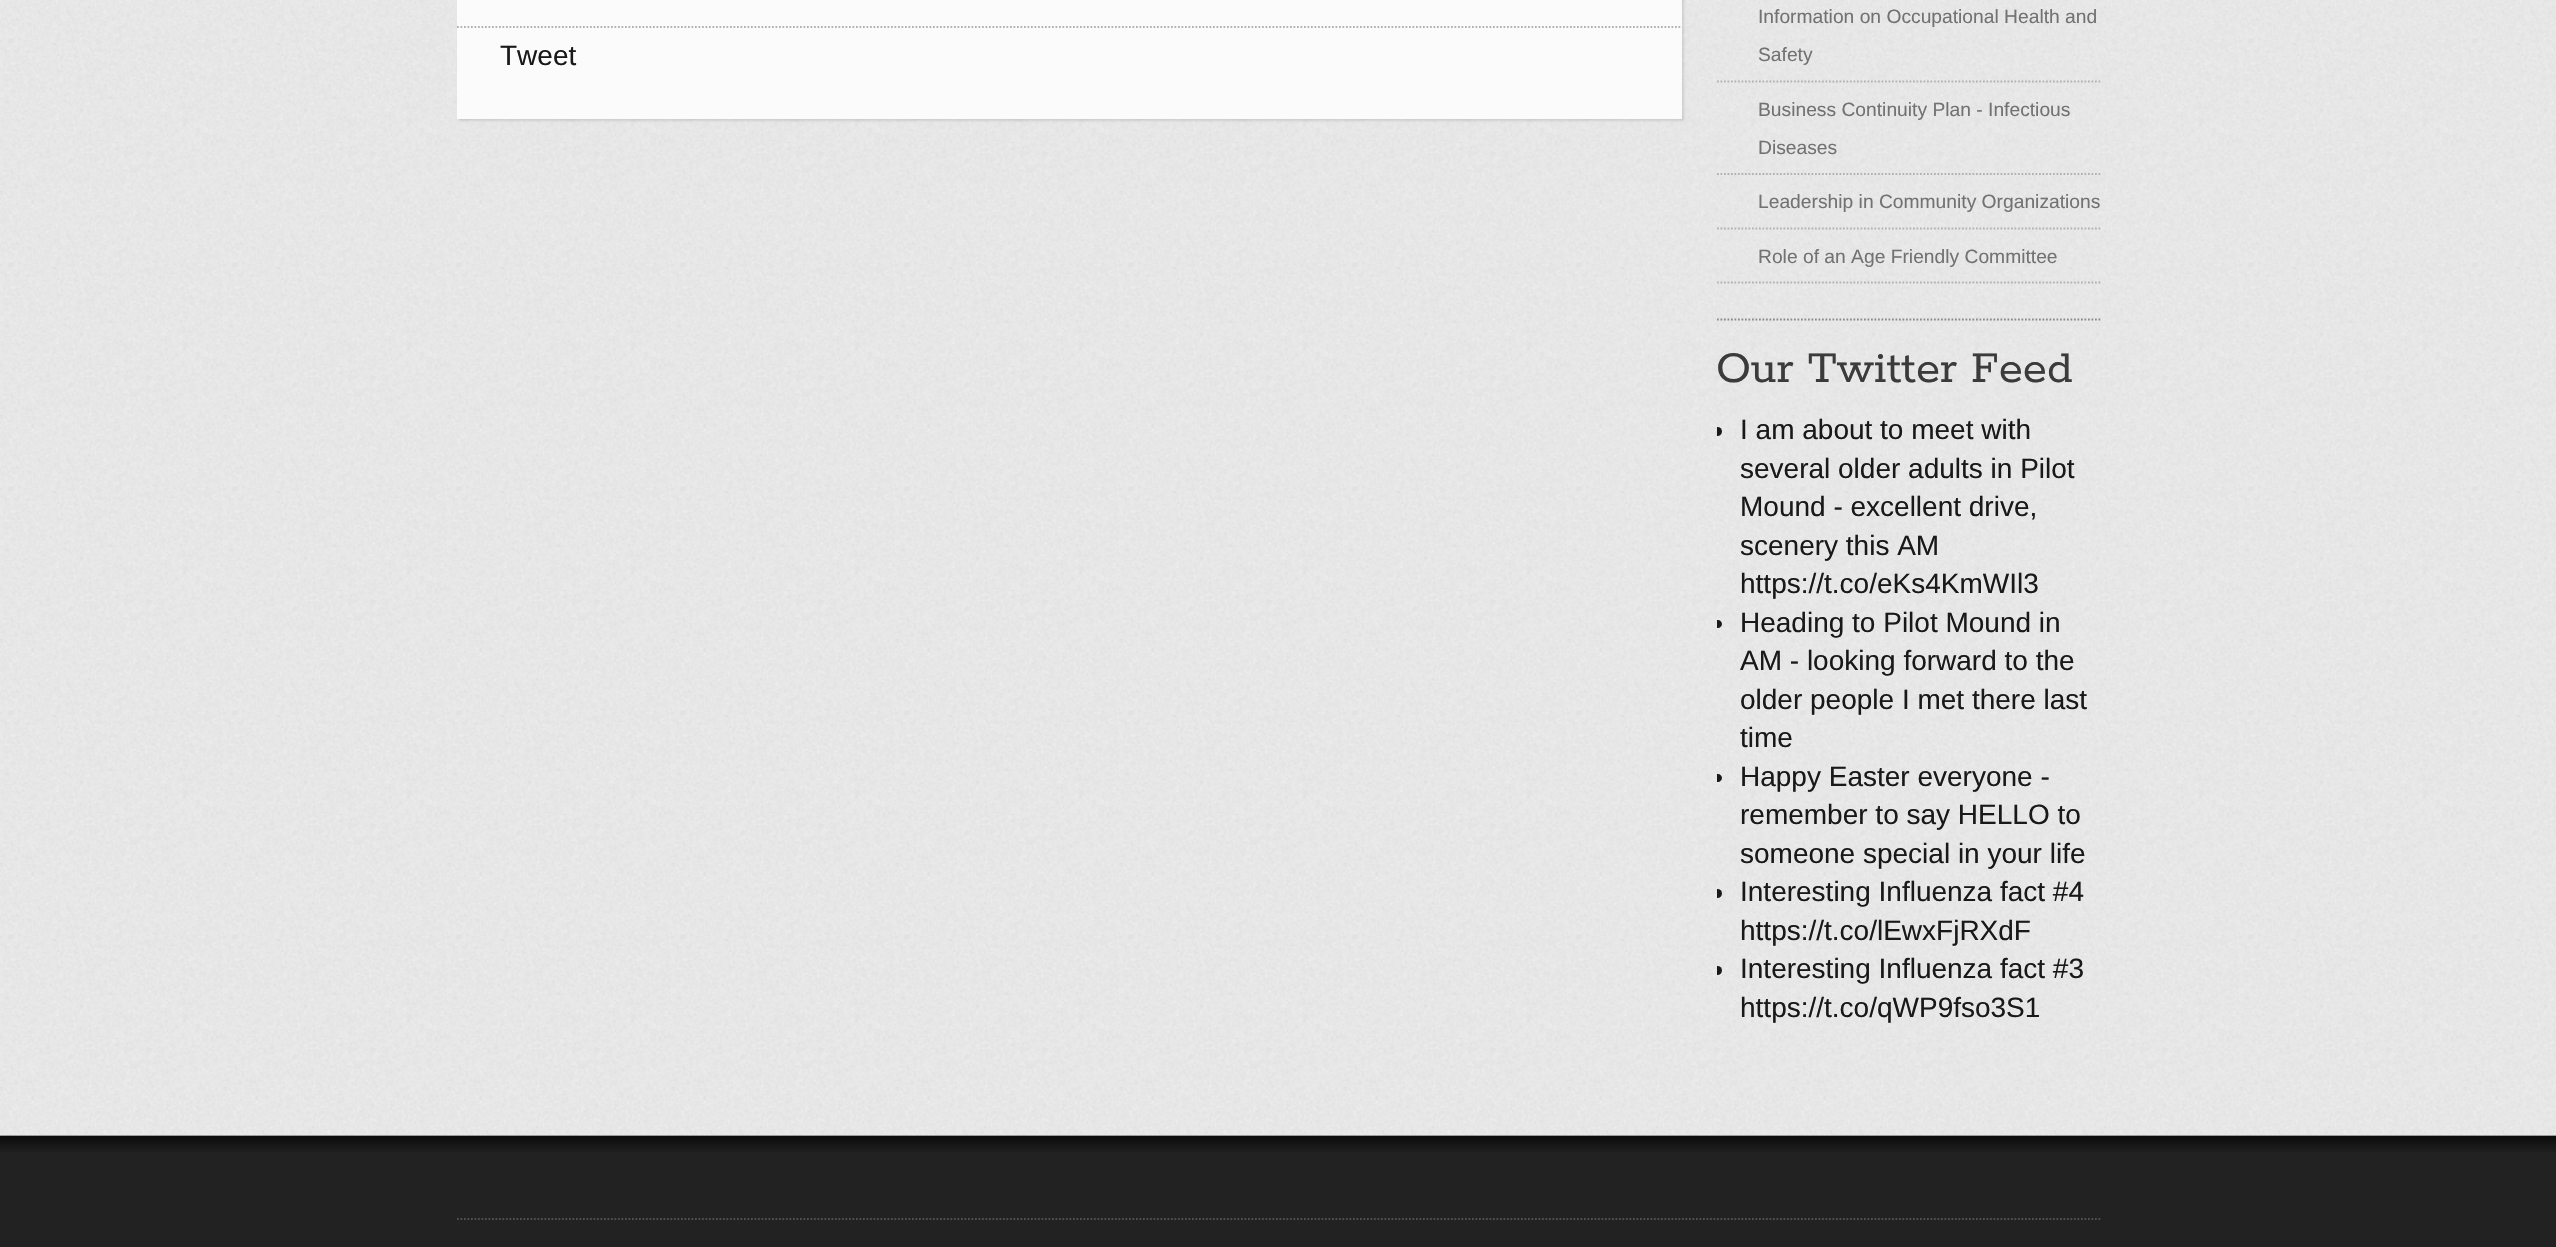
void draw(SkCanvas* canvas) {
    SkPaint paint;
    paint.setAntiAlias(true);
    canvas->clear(0xFF222222);
    paint.setColor(0xFFEDEDED);
    canvas->drawRect(SkRect::MakeXYWH(0, 1135, 2556, 1), paint);
    canvas->drawImageRect(SkImages::DeferredFromEncodedData(SkData::MakeFromFileName("img1.png")), SkRect::MakeXYWH(0, 0, 2556, 1136), SkSamplingOptions());
    paint.setColor(0x1A000000);
    paint.setMaskFilter(SkMaskFilter::MakeBlur(kNormal_SkBlurStyle, 1));
    canvas->drawRect(SkRect::MakeXYWH(459, -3, 1225, 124), paint);
    paint.setMaskFilter(nullptr);
    paint.setColor(0xFFFBFBFB);
    canvas->drawRect(SkRect::MakeXYWH(457, 0, 1225, 119), paint);
    paint.setStyle(SkPaint::kStroke_Style);
    paint.setStrokeWidth(1.8f);
    paint.setColor(0xFFB2B2B2);
    paint.setPathEffect(SkDashPathEffect::Make({{1.75f, 1.75f}}, 0));
    canvas->drawPath(SkPathBuilder().moveTo(457, 27).lineTo(1682, 27).detach(), paint);
    paint.setPathEffect(nullptr);
    SkFont font1(fontMgr->matchFamilyStyle("Liberation Sans", SkFontStyle::Normal()), 28);
    font1.setSubpixel(true);
    paint.setStyle(SkPaint::kFill_Style);
    paint.setColor(0xFF191919);
    canvas->drawString("Tweet", 500, 65, font1, paint);
    SkFont font2(fontMgr->matchFamilyStyle("Liberation Sans", SkFontStyle::Normal()), 19.25f);
    font2.setSubpixel(true);
    paint.setColor(0xFF727272);
    canvas->drawString("Information on Occupational Health and", 1758, 23, font2, paint);
    canvas->drawString("Safety", 1758, 61, font2, paint);
    paint.setStyle(SkPaint::kStroke_Style);
    paint.setColor(0xFFB2B2B2);
    paint.setPathEffect(SkDashPathEffect::Make({{1.75f, 1.75f}}, 0));
    canvas->drawPath(SkPathBuilder().moveTo(1717, 81.5f).lineTo(2102, 81.5f).detach(), paint);
    paint.setPathEffect(nullptr);
    paint.setStyle(SkPaint::kFill_Style);
    paint.setColor(0xFF727272);
    canvas->drawString("Business Continuity Plan - Infectious", 1758, 116, font2, paint);
    canvas->drawString("Diseases", 1758, 154, font2, paint);
    paint.setStyle(SkPaint::kStroke_Style);
    paint.setColor(0xFFB2B2B2);
    paint.setPathEffect(SkDashPathEffect::Make({{1.75f, 1.75f}}, 0));
    canvas->drawPath(SkPathBuilder().moveTo(1717, 174).lineTo(2102, 174).detach(), paint);
    paint.setPathEffect(nullptr);
    paint.setStyle(SkPaint::kFill_Style);
    paint.setColor(0xFF727272);
    canvas->drawString("Leadership in Community Organizations", 1758, 208, font2, paint);
    paint.setStyle(SkPaint::kStroke_Style);
    paint.setColor(0xFFB2B2B2);
    paint.setPathEffect(SkDashPathEffect::Make({{1.75f, 1.75f}}, 0));
    canvas->drawPath(SkPathBuilder().moveTo(1717, 228.5f).lineTo(2102, 228.5f).detach(), paint);
    paint.setPathEffect(nullptr);
    paint.setPathEffect(SkDashPathEffect::Make({{1.75f, 1.75f}}, 0));
    canvas->drawPath(SkPathBuilder().moveTo(1717, 282.5f).lineTo(2102, 282.5f).detach(), paint);
    paint.setPathEffect(nullptr);
    paint.setStyle(SkPaint::kFill_Style);
    paint.setColor(0xFF727272);
    canvas->drawString("Role of an Age Friendly Committee", 1758, 263, font2, paint);
    paint.setStyle(SkPaint::kStroke_Style);
    paint.setColor(0xFF8A8A8A);
    paint.setPathEffect(SkDashPathEffect::Make({{1.75f, 1.75f}}, 0));
    canvas->drawPath(SkPathBuilder().moveTo(1717, 319.5f).lineTo(2102, 319.5f).detach(), paint);
    paint.setPathEffect(nullptr);
    SkFont font3(fontMgr->matchFamilyStyle("Rokkitt", SkFontStyle::Normal()), 49);
    font3.setSubpixel(true);
    paint.setStyle(SkPaint::kFill_Style);
    paint.setColor(0xFF3B3B3B);
    canvas->drawString("Our Twitter Feed", 1716, 382, font3, paint);
    canvas->save();
    canvas->clipRect(SkRect::MakeXYWH(1717, 0, 385, 1101));
    paint.setColor(0xFF191919);
    canvas->drawCircle(1717.5f, 431.5f, 4.5f, paint);
    canvas->restore();
    canvas->drawString("I am about to meet with", 1740, 439, font1, paint);
    canvas->drawString("several older adults in Pilot", 1740, 478, font1, paint);
    canvas->drawString("Mound - excellent drive,", 1740, 516, font1, paint);
    canvas->drawString("scenery this AM", 1740, 555, font1, paint);
    canvas->drawString("https://t.co/eKs4KmWIl3", 1740, 593, font1, paint);
    canvas->drawPath(SkPathBuilder().moveTo(1717, 620).lineTo(1718, 620).cubicTo(1720, 620, 1722, 622, 1722, 624).cubicTo(1722, 626, 1720, 628, 1718, 628).lineTo(1717, 628).close().detach(), paint);
    canvas->drawString("Heading to Pilot Mound in", 1740, 632, font1, paint);
    canvas->drawString("AM - looking forward to the", 1740, 670, font1, paint);
    canvas->drawString("older people I met there last", 1740, 709, font1, paint);
    canvas->drawString("time", 1740, 747, font1, paint);
    canvas->drawPath(SkPathBuilder().moveTo(1717, 774).lineTo(1718, 774).cubicTo(1720, 774, 1722, 776, 1722, 778).cubicTo(1722, 780, 1720, 782, 1718, 782).lineTo(1717, 782).close().detach(), paint);
    canvas->drawString("Happy Easter everyone -", 1740, 786, font1, paint);
    canvas->drawString("remember to say HELLO to", 1740, 824, font1, paint);
    canvas->drawString("someone special in your life", 1740, 863, font1, paint);
    canvas->save();
    canvas->clipRect(SkRect::MakeXYWH(1717, 0, 385, 1101));
    canvas->drawCircle(1717.5f, 893.5f, 4.5f, paint);
    canvas->restore();
    canvas->drawString("Interesting Influenza fact #4", 1740, 901, font1, paint);
    canvas->drawString("https://t.co/lEwxFjRXdF", 1740, 940, font1, paint);
    canvas->save();
    canvas->clipRect(SkRect::MakeXYWH(1717, 0, 385, 1101));
    canvas->drawCircle(1717.5f, 970.5f, 4.5f, paint);
    canvas->restore();
    canvas->drawString("Interesting Influenza fact #3", 1740, 978, font1, paint);
    canvas->drawString("https://t.co/qWP9fso3S1", 1740, 1017, font1, paint);
    canvas->drawImageRect(SkImages::DeferredFromEncodedData(SkData::MakeFromFileName("img2.png")), SkRect::MakeXYWH(0, 1135, 2556, 17), SkSamplingOptions());
    paint.setStyle(SkPaint::kStroke_Style);
    paint.setColor(0xFF505050);
    paint.setPathEffect(SkDashPathEffect::Make({{1.75f, 1.75f}}, 0));
    canvas->drawPath(SkPathBuilder().moveTo(457, 1219).lineTo(2102, 1219).detach(), paint);
    paint.setPathEffect(nullptr);
}
